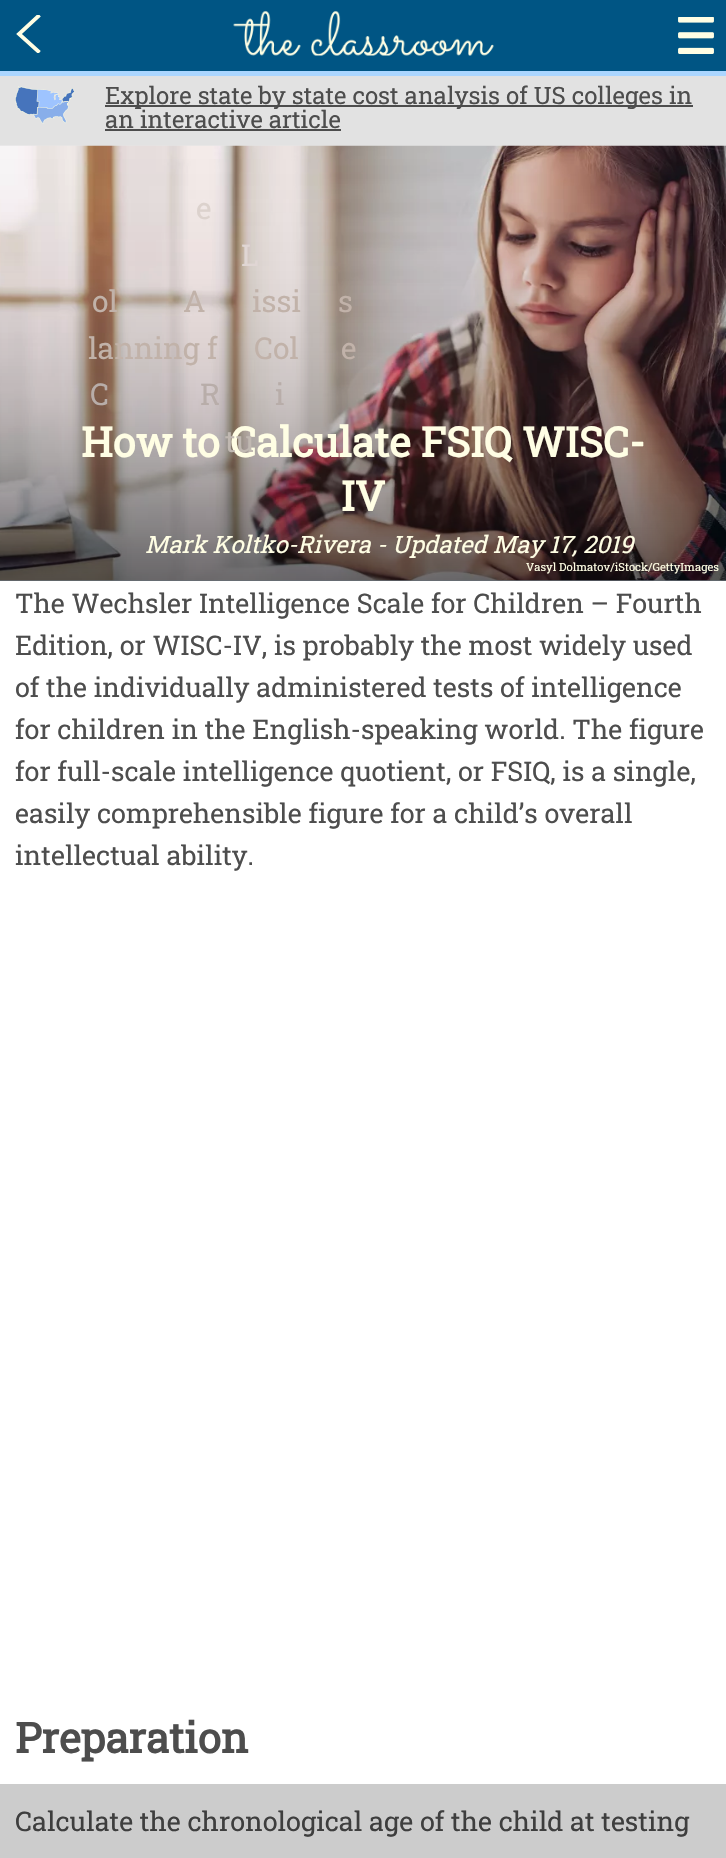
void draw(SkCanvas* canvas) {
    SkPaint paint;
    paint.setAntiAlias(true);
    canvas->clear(0xFFE2E2E2);
    canvas->drawImageRect(SkImages::DeferredFromEncodedData(SkData::MakeFromFileName("img1.png")), SkRect::MakeXYWH(15, 86, 60, 38), SkSamplingOptions());
    paint.setColor(0xFF4D4D4D);
    canvas->drawRect(SkRect::MakeXYWH(105, 105, 588, 2), paint);
    SkFont font1(fontMgr->matchFamilyStyle("Roboto Slab", SkFontStyle::Normal()), 24);
    font1.setSubpixel(true);
    canvas->drawString("Explore state by state cost analysis of US colleges in", 105, 104, font1, paint);
    canvas->drawString("an interactive article", 105, 128, font1, paint);
    canvas->drawRect(SkRect::MakeXYWH(105, 129, 236, 2), paint);
    paint.setColor(0xFF005584);
    canvas->drawRect(SkRect::MakeXYWH(0, 0, 726, 71), paint);
    paint.setColor(0xFFABD6FF);
    canvas->drawRect(SkRect::MakeXYWH(0, 71, 726, 5), paint);
    canvas->save();
    canvas->clipRect(SkRect::MakeXYWH(8, 15, 45, 38));
    paint.setStyle(SkPaint::kStroke_Style);
    paint.setStrokeWidth(3.8f);
    paint.setColor(0xFFFFFEE4);
    canvas->drawPath(SkPathBuilder().moveTo(39.5f, 52.5f).lineTo(19, 34).lineTo(39.5f, 15).detach(), paint);
    canvas->restore();
    canvas->drawImageRect(SkImages::DeferredFromEncodedData(SkData::MakeFromFileName("img2.png")), SkRect::MakeXYWH(233, 10, 261, 46), SkSamplingOptions());
    canvas->drawImageRect(SkImages::DeferredFromEncodedData(SkData::MakeFromFileName("img3.png")), SkRect::MakeXYWH(678, 17, 36, 37), SkSamplingOptions());
    paint.setStyle(SkPaint::kFill_Style);
    paint.setColor(0xFFDEEFFF);
    canvas->drawRect(SkRect::MakeXYWH(0, 580, 726, 1), paint);
    canvas->drawImageRect(SkImages::DeferredFromEncodedData(SkData::MakeFromFileName("img4.png")), SkRect::MakeXYWH(0, 145, 726, 436), SkSamplingOptions());
    {
        const SkColor colors[] = {0x00000000, 0x00000000, 0x03000000, 0x05000000, 0x0A000000, 0x12000000, 0x1F000000, 0x30000000, 0x47000000, 0x61000000, 0x8A000000};
        const float stops[] = {0, 0.19f, 0.34f, 0.47f, 0.56f, 0.65f, 0.73f, 0.8f, 0.86f, 0.91f, 1};
        const SkPoint ends[] = {{363, -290}, {363, 581}};
        paint.setShader(SkGradientShader::MakeLinear(ends, colors, stops, 11, SkTileMode::kClamp));
        paint.setAlpha(255);
    }
    canvas->drawRect(SkRect::MakeXYWH(0, 146, 726, 435), paint);
    SkFont font2(fontMgr->matchFamilyStyle("Roboto Slab", SkFontStyle::Normal()), 30);
    font2.setSubpixel(true);
    paint.setShader(nullptr);
    paint.setColor(0xFFDCD2CD);
    canvas->drawString("e", 196, 219, font2, paint);
    paint.setColor(0xFFE0D6D4);
    canvas->drawString("L", 241, 266, font2, paint);
    paint.setColor(0xFFC1B2A9);
    canvas->drawString("ol", 92, 312, font2, paint);
    canvas->drawString("A", 183, 312, font2, paint);
    canvas->drawString("issi", 252, 312, font2, paint);
    canvas->drawString("s", 338, 312, font2, paint);
    canvas->drawString("lanning f", 88, 359, font2, paint);
    canvas->drawString("Col", 254, 359, font2, paint);
    canvas->drawString("e", 341, 359, font2, paint);
    paint.setColor(0xFFB8ADA9);
    canvas->drawString("C", 90, 405, font2, paint);
    canvas->drawString("R", 200, 405, font2, paint);
    canvas->drawString("i", 275, 405, font2, paint);
    SkFont font3(fontMgr->matchFamilyStyle("Roboto Slab", SkFontStyle::Bold()), 41.25f);
    font3.setSubpixel(true);
    paint.setColor(0xFFFFFEE4);
    canvas->drawString("How to Calculate FSIQ WISC-", 81, 457, font3, paint);
    paint.setColor(0xFFC0B8B1);
    canvas->drawString("tu", 225, 452, font2, paint);
    paint.setColor(0xFFFFFFFF);
    canvas->drawRect(SkRect::MakeXYWH(0, 581, 726, 1203), paint);
    paint.setColor(0xFFCCCCCC);
    canvas->drawRect(SkRect::MakeXYWH(0, 1784, 726, 74), paint);
    paint.setColor(0xFFFFFEE4);
    canvas->drawString("IV", 341, 511, font3, paint);
    SkFont font4(fontMgr->matchFamilyStyle("Roboto Slab", SkFontStyle::Italic()), 24);
    font4.setSubpixel(true);
    canvas->drawString("Mark Koltko-Rivera - Updated May 17, 2019", 145, 553, font4, paint);
    SkFont font5(fontMgr->matchFamilyStyle("Roboto Slab", SkFontStyle::Normal()), 11.25f);
    font5.setSubpixel(true);
    canvas->drawString("Vasyl Dolmatov/iStock/GettyImages", 526, 571, font5, paint);
    SkFont font6(fontMgr->matchFamilyStyle("Roboto Slab", SkFontStyle::Normal()), 27);
    font6.setSubpixel(true);
    paint.setColor(0xFF4D4D4D);
    canvas->drawString("The Wechsler Intelligence Scale for Children – Fourth", 15, 613, font6, paint);
    canvas->drawString("Edition, or WISC-IV, is probably the most widely used", 15, 655, font6, paint);
    canvas->drawString("of the individually administered tests of intelligence", 15, 697, font6, paint);
    canvas->drawString("for children in the English-speaking world. The figure", 15, 739, font6, paint);
    canvas->drawString("for full-scale intelligence quotient, or FSIQ, is a single,", 15, 781, font6, paint);
    canvas->drawString("easily comprehensible figure for a child’s overall", 15, 823, font6, paint);
    canvas->drawString("intellectual ability.", 15, 865, font6, paint);
    SkFont font7(fontMgr->matchFamilyStyle("Roboto Slab", SkFontStyle::Bold()), 42);
    font7.setSubpixel(true);
    canvas->drawString("Preparation", 15, 1753, font7, paint);
    paint.setColor(0xFF3E3E3E);
    canvas->drawString("Calculate the chronological age of the child at testing", 15, 1831, font6, paint);
}
